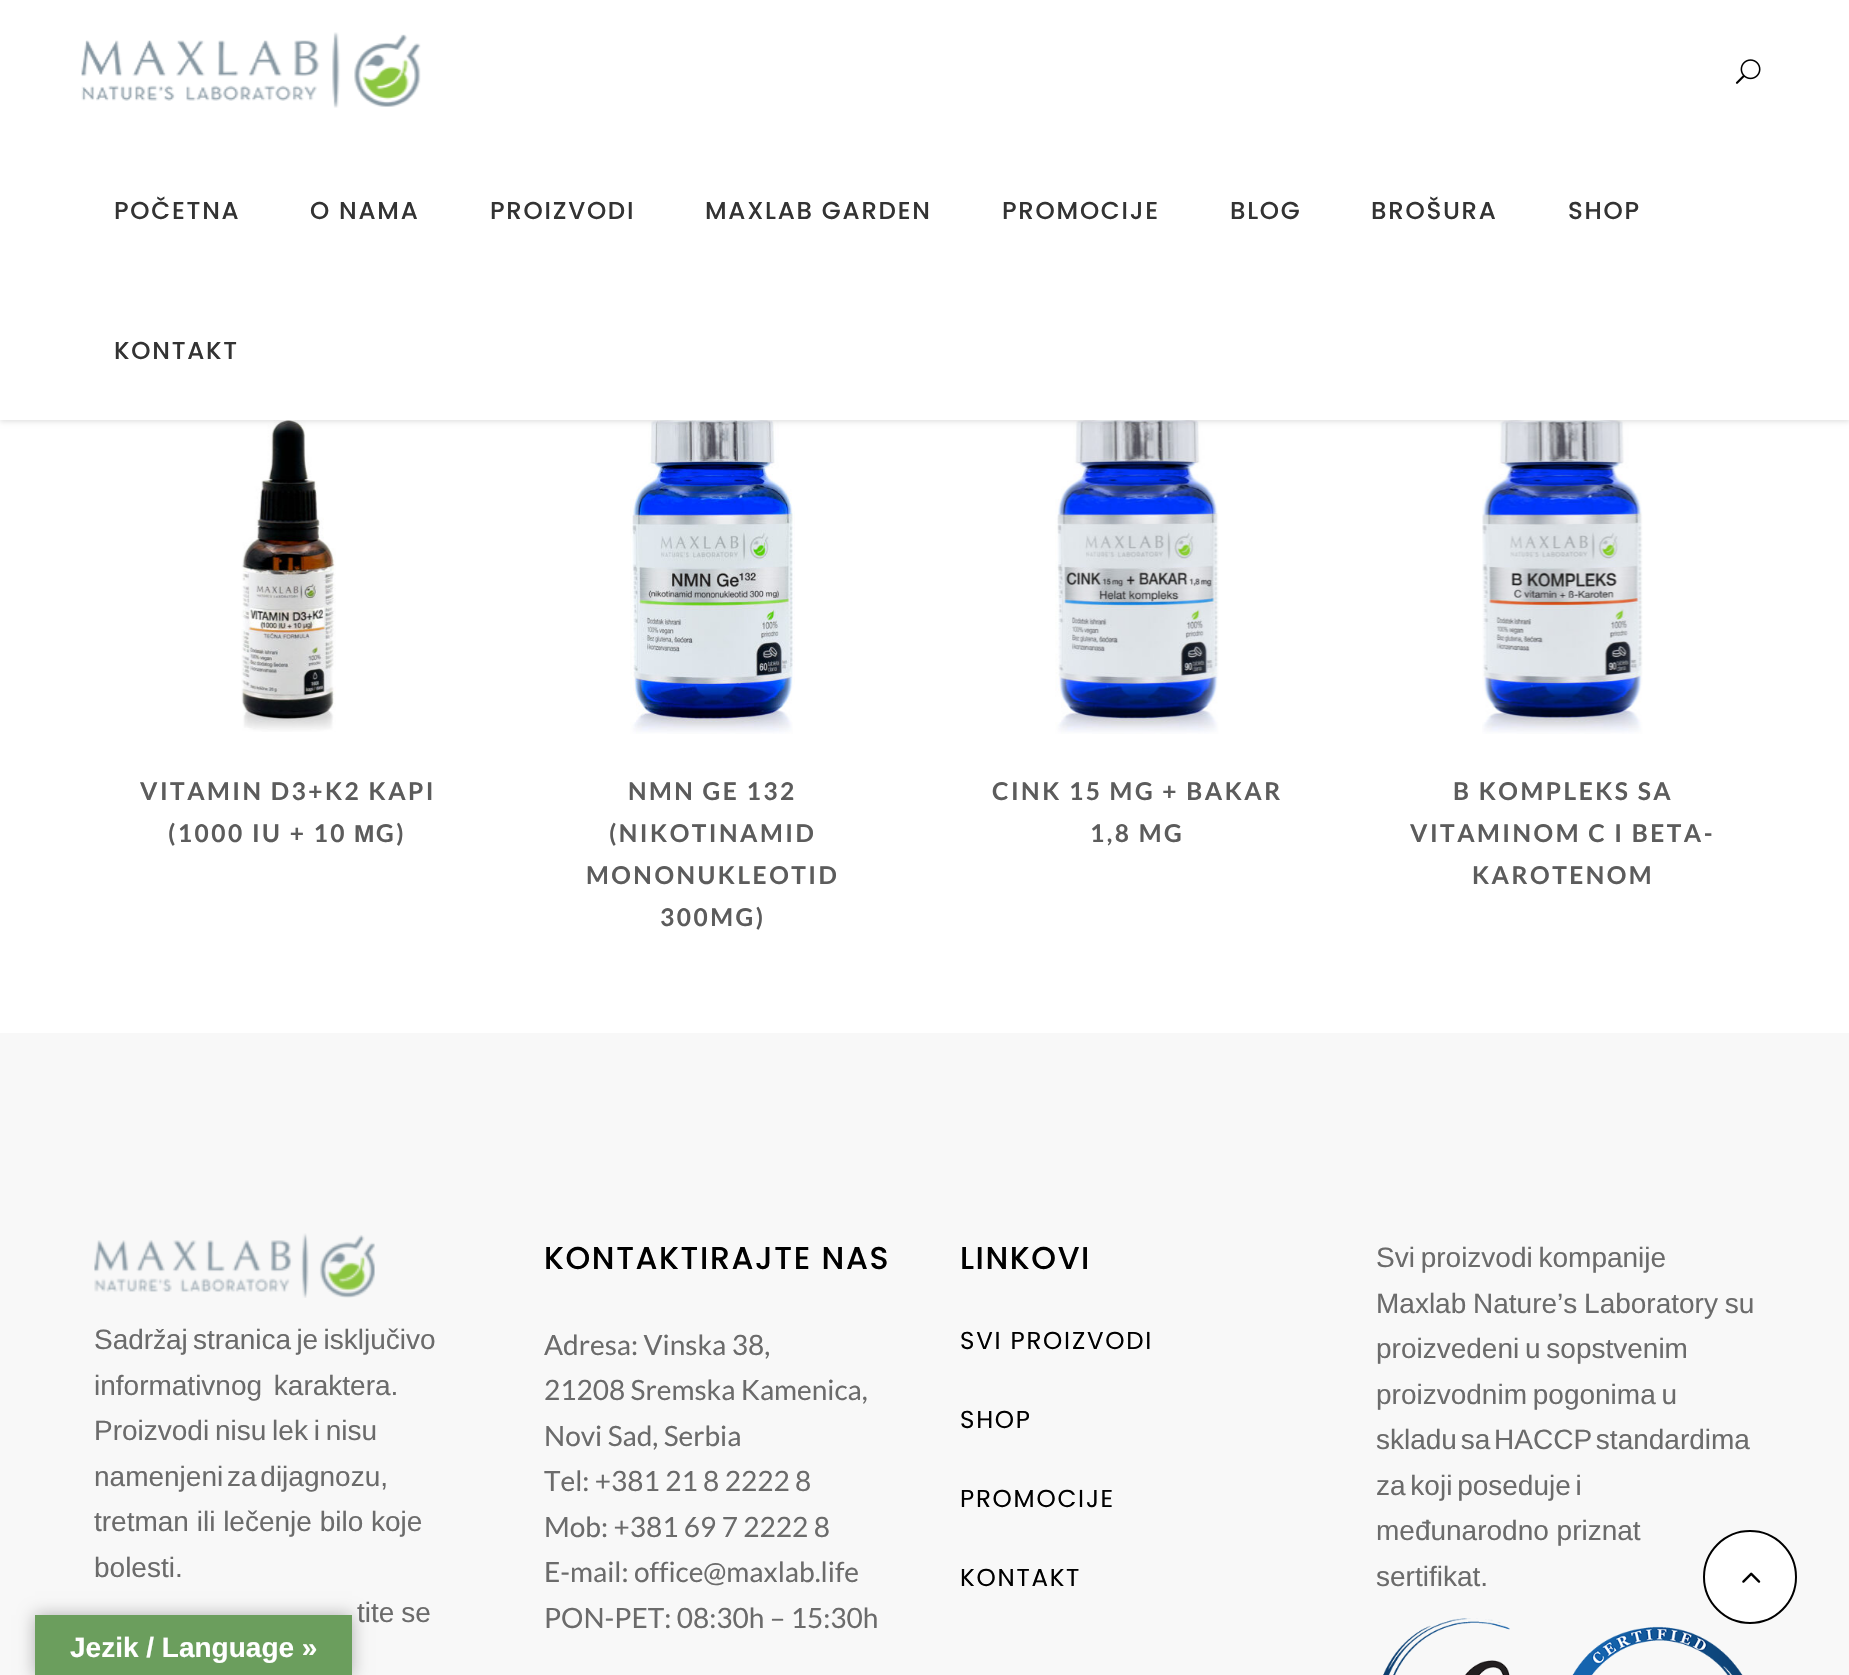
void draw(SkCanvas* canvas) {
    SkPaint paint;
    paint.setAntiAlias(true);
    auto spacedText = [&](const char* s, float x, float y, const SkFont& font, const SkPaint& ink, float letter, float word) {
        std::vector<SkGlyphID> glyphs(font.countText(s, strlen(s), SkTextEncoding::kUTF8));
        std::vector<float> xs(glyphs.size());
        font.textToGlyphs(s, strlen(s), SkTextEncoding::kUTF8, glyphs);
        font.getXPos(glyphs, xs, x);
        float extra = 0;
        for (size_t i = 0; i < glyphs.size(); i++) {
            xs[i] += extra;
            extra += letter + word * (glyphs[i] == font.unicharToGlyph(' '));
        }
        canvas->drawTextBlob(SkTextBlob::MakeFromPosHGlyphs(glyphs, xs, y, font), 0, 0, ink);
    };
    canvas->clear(0xFFFFFFFF);
    canvas->drawImageRect(SkImages::DeferredFromEncodedData(SkData::MakeFromFileName("img3.png")), SkRect::MakeXYWH(241, 420, 95, 312), SkSamplingOptions());
    canvas->drawImageRect(SkImages::DeferredFromEncodedData(SkData::MakeFromFileName("img4.png")), SkRect::MakeXYWH(630, 420, 165, 314), SkSamplingOptions());
    canvas->drawImageRect(SkImages::DeferredFromEncodedData(SkData::MakeFromFileName("img5.png")), SkRect::MakeXYWH(1055, 420, 164, 314), SkSamplingOptions());
    canvas->drawImageRect(SkImages::DeferredFromEncodedData(SkData::MakeFromFileName("img6.png")), SkRect::MakeXYWH(1482, 420, 161, 314), SkSamplingOptions());
    paint.setColor(0x1C000000);
    paint.setMaskFilter(SkMaskFilter::MakeBlur(kNormal_SkBlurStyle, 2.5f));
    canvas->drawRect(SkRect::MakeXYWH(0, 2, 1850, 420), paint);
    paint.setMaskFilter(nullptr);
    paint.setColor(0xFFFFFFFF);
    canvas->drawRect(SkRect::MakeXYWH(0, 0, 1849, 420), paint);
    canvas->drawImageRect(SkImages::DeferredFromEncodedData(SkData::MakeFromFileName("img1.png")), SkRect::MakeXYWH(81, 32, 340, 76), SkSamplingOptions());
    canvas->drawImageRect(SkImages::DeferredFromEncodedData(SkData::MakeFromFileName("img2.png")), SkRect::MakeXYWH(1735, 59, 26, 25), SkSamplingOptions());
    SkFont font1(fontMgr->matchFamilyStyle("Poppins", SkFontStyle(500, SkFontStyle::kNormal_Width, SkFontStyle::kUpright_Slant)), 24.5f);
    font1.setSubpixel(true);
    paint.setColor(0xFF333333);
    spacedText("POČETNA", 114, 219, font1, paint, 1.75f, 0);
    spacedText("O NAMA", 310, 219, font1, paint, 1.75f, 0);
    spacedText("PROIZVODI", 490, 219, font1, paint, 1.75f, 0);
    spacedText("MAXLAB GARDEN", 705, 219, font1, paint, 1.75f, 0);
    spacedText("PROMOCIJE", 1002, 219, font1, paint, 1.75f, 0);
    spacedText("BLOG", 1230, 219, font1, paint, 1.75f, 0);
    spacedText("BROŠURA", 1371, 219, font1, paint, 1.75f, 0);
    spacedText("SHOP", 1568, 219, font1, paint, 1.75f, 0);
    spacedText("KONTAKT", 114, 359, font1, paint, 1.75f, 0);
    SkFont font2(fontMgr->matchFamilyStyle("Lato", SkFontStyle::Bold()), 24.5f);
    font2.setSubpixel(true);
    paint.setColor(0xFF5C5C5C);
    spacedText("VITAMIN D3+K2 KAPI", 140, 800, font2, paint, 2.5f, 0);
    spacedText("(1000 IU + 10", 168, 842, font2, paint, 2.5f, 0);
    SkFont font3(fontMgr->matchFamilyStyle("Liberation Sans", SkFontStyle::Bold()), 24.5f);
    font3.setSubpixel(true);
    spacedText("Μ", 354, 842, font3, paint, 2.5f, 0);
    spacedText("G)", 376, 842, font2, paint, 2.5f, 0);
    spacedText("NMN GE 132", 628, 800, font2, paint, 2.5f, 0);
    spacedText("(NIKOTINAMID", 609, 842, font2, paint, 2.5f, 0);
    spacedText("MONONUKLEOTID", 586, 884, font2, paint, 2.5f, 0);
    spacedText("300MG)", 660, 926, font2, paint, 2.5f, 0);
    spacedText("CINK 15 MG + BAKAR", 992, 800, font2, paint, 2.5f, 0);
    spacedText("1,8 MG", 1090, 842, font2, paint, 2.5f, 0);
    spacedText("B KOMPLEKS SA", 1453, 800, font2, paint, 2.5f, 0);
    spacedText("VITAMINOM C I BETA-", 1410, 842, font2, paint, 2.5f, 0);
    spacedText("KAROTENOM", 1472, 884, font2, paint, 2.5f, 0);
    paint.setColor(0xFFF8F8F8);
    canvas->drawRect(SkRect::MakeXYWH(0, 1033, 1849, 642), paint);
    canvas->drawImageRect(SkImages::DeferredFromEncodedData(SkData::MakeFromFileName("img7.png")), SkRect::MakeXYWH(94, 1233, 281, 65), SkSamplingOptions());
    SkFont font4(fontMgr->matchFamilyStyle("Liberation Sans", SkFontStyle::Normal()), 28);
    font4.setSubpixel(true);
    paint.setColor(0xFF6B6B6B);
    canvas->drawString("Sadr", 94, 1349, font4, paint);
    SkFont font5(fontMgr->matchFamilyStyle("Lato", SkFontStyle::Normal()), 28);
    font5.setSubpixel(true);
    canvas->drawString("ž", 153, 1349, font5, paint);
    spacedText("aj stranica je isključivo", 166, 1349, font4, paint, 0, -2.5f);
    spacedText("informativnog karaktera.", 94, 1395, font4, paint, 0, 4);
    spacedText("Proizvodi nisu lek i nisu", 94, 1440, font4, paint, 0, -2);
    spacedText("namenjeni za dijagnozu,", 94, 1486, font4, paint, 0, -4);
    canvas->drawString("tretman ili lečenje bilo koje", 94, 1531, font4, paint);
    canvas->drawString("bolesti.", 94, 1577, font4, paint);
    spacedText("tite se", 357, 1622, font4, paint, 0, -1);
    SkFont font6(fontMgr->matchFamilyStyle("Poppins", SkFontStyle(500, SkFontStyle::kNormal_Width, SkFontStyle::kUpright_Slant)), 31.5f);
    font6.setSubpixel(true);
    paint.setColor(0xFF000000);
    spacedText("KONTAKTIRAJTE NAS", 544, 1269, font6, paint, 1.6f, 0);
    paint.setColor(0xFF6B6B6B);
    canvas->drawString("Adresa: Vinska 38,", 544, 1355, font5, paint);
    canvas->drawString("21208 Sremska Kamenica,", 544, 1400, font5, paint);
    canvas->drawString("Novi Sad, Serbia", 544, 1446, font5, paint);
    canvas->drawString("Tel: +381 21 8 2222 8", 544, 1491, font5, paint);
    canvas->drawString("Mob: +381 69 7 2222 8", 544, 1537, font5, paint);
    canvas->drawString("E-mail: office@maxlab.life", 544, 1582, font5, paint);
    canvas->drawString("PON-PET: 08:30h – 15:30h", 544, 1628, font5, paint);
    paint.setColor(0xFF000000);
    spacedText("LINKOVI", 960, 1269, font6, paint, 1.6f, 0);
    SkFont font7(fontMgr->matchFamilyStyle("Poppins", SkFontStyle::Normal()), 24.5f);
    font7.setSubpixel(true);
    spacedText("SVI PROIZVODI", 960, 1349, font7, paint, 1.75f, 0);
    spacedText("SHOP", 960, 1428, font7, paint, 1.75f, 0);
    spacedText("PROMOCIJE", 960, 1507, font7, paint, 1.75f, 0);
    spacedText("KONTAKT", 960, 1586, font7, paint, 1.75f, 0);
    paint.setColor(0xFF6B6B6B);
    spacedText("Svi proizvodi kompanije", 1376, 1267, font4, paint, 0, -2);
    spacedText("Maxlab Nature’s Laboratory su", 1376, 1313, font4, paint, 0, -1);
    spacedText("proizvedeni u sopstvenim", 1376, 1358, font4, paint, 0, -2);
    spacedText("proizvodnim pogonima u", 1376, 1404, font4, paint, 0, -2);
    spacedText("skladu sa HACCP standardima", 1376, 1449, font4, paint, 0, -4);
    spacedText("za koji poseduje i", 1376, 1495, font4, paint, 0, -3);
    canvas->drawString("međunarodno priznat", 1376, 1540, font4, paint);
    canvas->drawString("sertifikat.", 1376, 1586, font4, paint);
    canvas->drawImageRect(SkImages::DeferredFromEncodedData(SkData::MakeFromFileName("img8.png")), SkRect::MakeXYWH(1383, 1618, 360, 57), SkSamplingOptions());
    paint.setColor(0xFFFFFFFF);
    canvas->drawCircle(1750, 1577, 46, paint);
    paint.setStyle(SkPaint::kStroke_Style);
    paint.setStrokeWidth(2);
    paint.setColor(0xFF000000);
    canvas->drawCircle(1750, 1577, 46, paint);
    canvas->drawImageRect(SkImages::DeferredFromEncodedData(SkData::MakeFromFileName("img9.png")), SkRect::MakeXYWH(1742, 1572, 19, 11), SkSamplingOptions());
    paint.setStyle(SkPaint::kFill_Style);
    paint.setColor(0x4D000000);
    paint.setMaskFilter(SkMaskFilter::MakeBlur(kNormal_SkBlurStyle, 8));
    canvas->drawRect(SkRect::MakeXYWH(35, 1615, 317, 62), paint);
    paint.setMaskFilter(nullptr);
    paint.setColor(0xFF6B9E5D);
    canvas->drawRect(SkRect::MakeXYWH(35, 1615, 317, 60), paint);
    SkFont font8(fontMgr->matchFamilyStyle("Liberation Sans", SkFontStyle::Bold()), 28);
    font8.setSubpixel(true);
    paint.setColor(0xFFFFFFFF);
    canvas->drawString("Jezik / Language »", 70, 1657, font8, paint);
}
